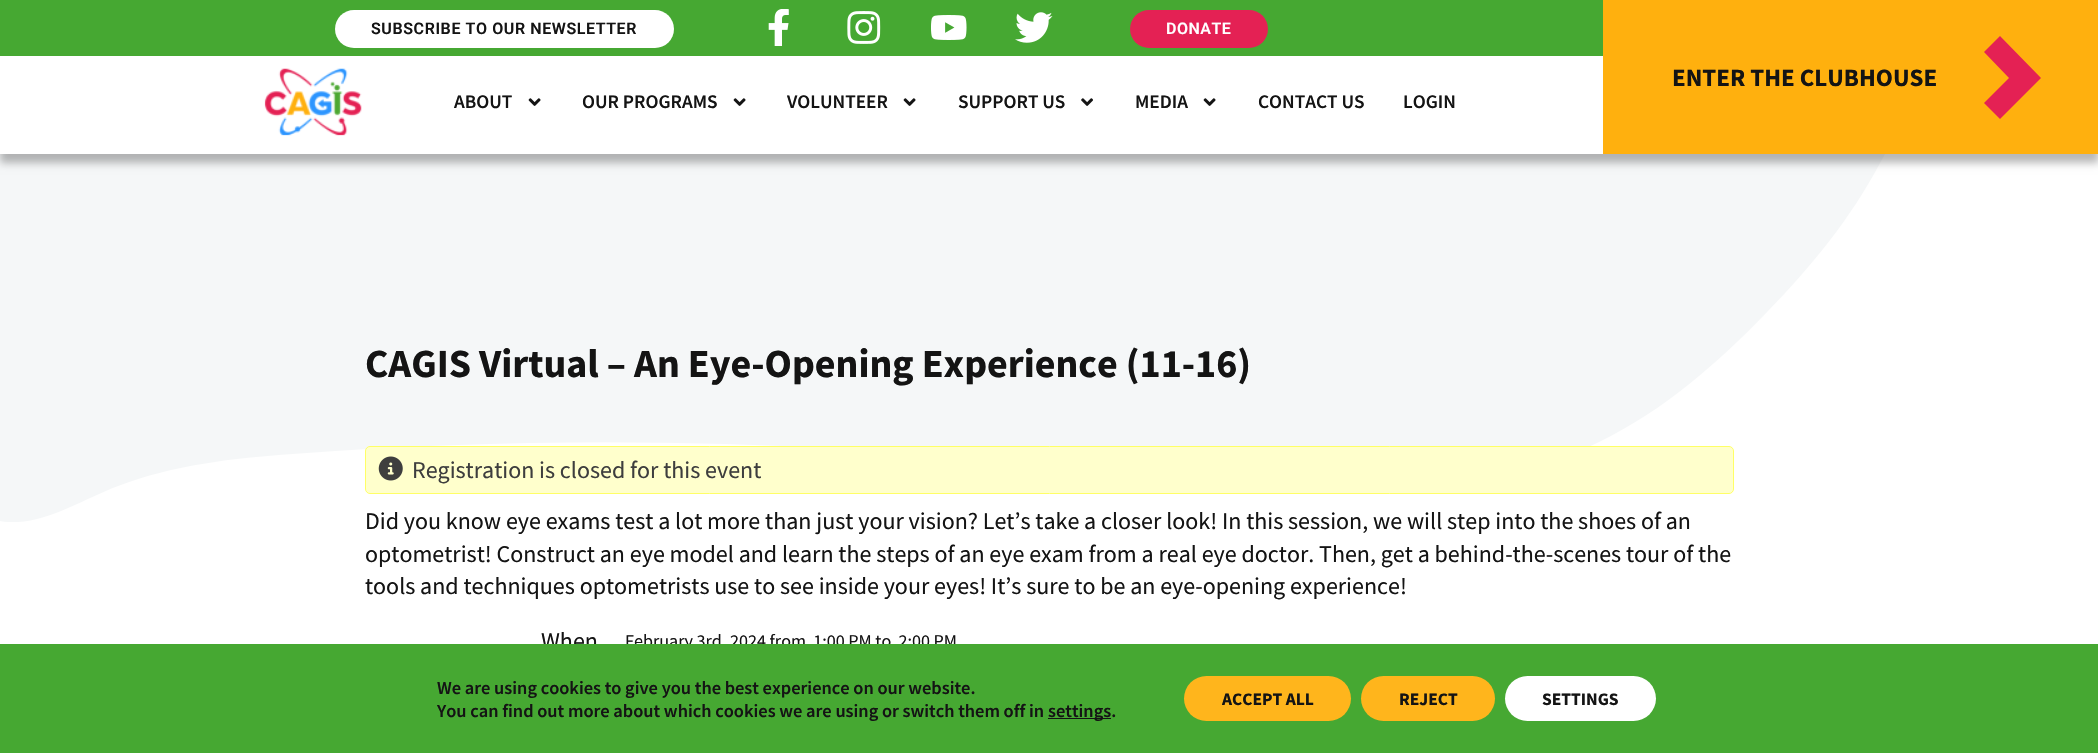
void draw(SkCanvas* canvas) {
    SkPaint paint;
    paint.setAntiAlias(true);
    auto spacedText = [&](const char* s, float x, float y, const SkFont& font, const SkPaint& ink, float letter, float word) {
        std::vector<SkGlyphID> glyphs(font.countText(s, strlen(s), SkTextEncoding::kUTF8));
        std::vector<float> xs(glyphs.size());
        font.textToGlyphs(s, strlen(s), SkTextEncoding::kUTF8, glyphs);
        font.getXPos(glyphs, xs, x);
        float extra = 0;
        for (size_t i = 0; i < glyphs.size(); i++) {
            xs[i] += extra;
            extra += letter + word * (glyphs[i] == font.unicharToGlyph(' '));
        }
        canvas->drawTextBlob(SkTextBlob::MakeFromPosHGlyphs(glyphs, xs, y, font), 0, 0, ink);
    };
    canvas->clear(0xFFFFFFFF);
    canvas->save();
    canvas->clipRect(SkRect::MakeXYWH(0, 154, 1885, 368));
    paint.setColor(0xFFF5F7F8);
    canvas->drawPath(SkPathBuilder().moveTo(0, 154).lineTo(0, 521).cubicTo(41, 528, 80, 500, 118, 486).cubicTo(173, 465, 233, 458, 292, 454).cubicTo(559, 434, 828, 440, 1094, 470).cubicTo(1264, 489, 1445, 517, 1599, 442).cubicTo(1663, 411, 1718, 363, 1767, 312).cubicTo(1811, 267, 1851, 218, 1880, 163).lineTo(1885, 154).close().detach(), paint);
    canvas->restore();
    paint.setColor(0x47000000);
    paint.setMaskFilter(SkMaskFilter::MakeBlur(kNormal_SkBlurStyle, 4));
    canvas->drawRect(SkRect::MakeXYWH(0, 9, 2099, 154), paint);
    paint.setMaskFilter(nullptr);
    paint.setColor(0xFF46A832);
    canvas->drawRect(SkRect::MakeXYWH(0, 0, 1603, 56), paint);
    paint.setColor(0xFFFFFFFF);
    canvas->drawRoundRect(SkRect::MakeXYWH(335, 10, 339, 38), 19, 19, paint);
    SkFont font1(fontMgr->matchFamilyStyle("Roboto", SkFontStyle(600, SkFontStyle::kNormal_Width, SkFontStyle::kUpright_Slant)), 16);
    font1.setSubpixel(true);
    paint.setColor(0xFF141414);
    spacedText("SUBSCRIBE TO OUR NEWSLETTER", 371, 34, font1, paint, 0.6f, 0);
    canvas->drawImageRect(SkImages::DeferredFromEncodedData(SkData::MakeFromFileName("img1.png")), SkRect::MakeXYWH(768, 9, 21, 37), SkSamplingOptions());
    canvas->drawImageRect(SkImages::DeferredFromEncodedData(SkData::MakeFromFileName("img2.png")), SkRect::MakeXYWH(847, 11, 34, 33), SkSamplingOptions());
    canvas->drawImageRect(SkImages::DeferredFromEncodedData(SkData::MakeFromFileName("img3.png")), SkRect::MakeXYWH(931, 15, 36, 25), SkSamplingOptions());
    canvas->drawImageRect(SkImages::DeferredFromEncodedData(SkData::MakeFromFileName("img4.png")), SkRect::MakeXYWH(1015, 12, 38, 31), SkSamplingOptions());
    paint.setColor(0xFFE42154);
    canvas->drawRoundRect(SkRect::MakeXYWH(1130, 10, 138, 38), 19, 19, paint);
    paint.setColor(0xFFFFFFFF);
    spacedText("DONATE", 1166, 34, font1, paint, 0.5f, 0);
    canvas->drawRect(SkRect::MakeXYWH(0, 56, 1603, 98), paint);
    canvas->drawImageRect(SkImages::DeferredFromEncodedData(SkData::MakeFromFileName("img5.png")), SkRect::MakeXYWH(264, 68, 98, 68), SkSamplingOptions());
    SkFont font2(fontMgr->matchFamilyStyle("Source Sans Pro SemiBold", SkFontStyle(600, SkFontStyle::kNormal_Width, SkFontStyle::kUpright_Slant)), 19.25f);
    font2.setSubpixel(true);
    paint.setColor(0xFF141414);
    canvas->drawString("ABOUT", 454, 108, font2, paint);
    canvas->drawImageRect(SkImages::DeferredFromEncodedData(SkData::MakeFromFileName("img6.png")), SkRect::MakeXYWH(528, 98, 13, 8), SkSamplingOptions());
    canvas->drawString("OUR PROGRAMS", 582, 108, font2, paint);
    canvas->drawImageRect(SkImages::DeferredFromEncodedData(SkData::MakeFromFileName("img6.png")), SkRect::MakeXYWH(733, 98, 13, 8), SkSamplingOptions());
    canvas->drawString("VOLUNTEER", 787, 108, font2, paint);
    canvas->drawImageRect(SkImages::DeferredFromEncodedData(SkData::MakeFromFileName("img6.png")), SkRect::MakeXYWH(903, 98, 13, 8), SkSamplingOptions());
    canvas->drawString("SUPPORT US", 958, 108, font2, paint);
    canvas->drawImageRect(SkImages::DeferredFromEncodedData(SkData::MakeFromFileName("img7.png")), SkRect::MakeXYWH(1081, 98, 12, 8), SkSamplingOptions());
    canvas->drawString("MEDIA", 1135, 108, font2, paint);
    canvas->drawImageRect(SkImages::DeferredFromEncodedData(SkData::MakeFromFileName("img6.png")), SkRect::MakeXYWH(1203, 98, 13, 8), SkSamplingOptions());
    canvas->drawString("CONTACT US", 1258, 108, font2, paint);
    canvas->drawString("LOGIN", 1403, 108, font2, paint);
    paint.setColor(0xFFFFB00E);
    canvas->drawRect(SkRect::MakeXYWH(1603, 0, 495, 154), paint);
    SkFont font3(fontMgr->matchFamilyStyle("Source Sans Pro", SkFontStyle::Bold()), 25);
    font3.setSubpixel(true);
    paint.setColor(0xFF141414);
    canvas->drawString("ENTER THE CLUBHOUSE", 1672, 86, font3, paint);
    paint.setColor(0xFFE42154);
    canvas->drawPath(SkPathBuilder().moveTo(2041, 78).lineTo(2000, 36).lineTo(1984, 52).lineTo(2009, 78).lineTo(1984, 103).lineTo(2000, 119).close().detach(), paint);
    SkFont font4(fontMgr->matchFamilyStyle("Source Sans Pro", SkFontStyle::Bold()), 40);
    font4.setSubpixel(true);
    paint.setColor(0xFF141414);
    canvas->drawString("CAGIS Virtual – An Eye-Opening Experience (11-16)", 365, 377, font4, paint);
    paint.setColor(0xFFFFFFCC);
    canvas->drawRoundRect(SkRect::MakeXYWH(365.5f, 446.5f, 1368, 47), 4.5f, 4.5f, paint);
    paint.setStyle(SkPaint::kStroke_Style);
    paint.setStrokeWidth(1);
    paint.setColor(0xFFFFFF66);
    canvas->drawRoundRect(SkRect::MakeXYWH(365.5f, 446.5f, 1368, 47), 4.5f, 4.5f, paint);
    canvas->drawImageRect(SkImages::DeferredFromEncodedData(SkData::MakeFromFileName("img8.png")), SkRect::MakeXYWH(378, 456, 25, 25), SkSamplingOptions());
    SkFont font5(fontMgr->matchFamilyStyle("Source Sans Pro", SkFontStyle::Normal()), 24);
    font5.setSubpixel(true);
    paint.setStyle(SkPaint::kFill_Style);
    paint.setColor(0xFF3E3E3E);
    canvas->drawString("Registration is closed for this event", 412, 478, font5, paint);
    paint.setColor(0xFF141414);
    canvas->drawString("Did you know eye exams test a lot more than just your vision? Let’s take a closer look! In this session, we will step into the shoes of an", 365, 529, font5, paint);
    canvas->drawString("optometrist! Construct an eye model and learn the steps of an eye exam from a real eye doctor. Then, get a behind-the-scenes tour of the", 365, 562, font5, paint);
    canvas->drawString("tools and techniques optometrists use to see inside your eyes! It’s sure to be an eye-opening experience!", 365, 594, font5, paint);
    canvas->drawString("When", 541, 649, font5, paint);
    SkFont font6(fontMgr->matchFamilyStyle("Source Sans Pro", SkFontStyle::Normal()), 18.1f);
    font6.setSubpixel(true);
    canvas->drawString("February 3rd, 2024 from  1:00 PM to  2:00 PM", 625, 647, font6, paint);
    paint.setColor(0xFF46A832);
    canvas->drawRect(SkRect::MakeXYWH(0, 644, 2098, 109), paint);
    SkFont font7(fontMgr->matchFamilyStyle("Source Sans Pro SemiBold", SkFontStyle(600, SkFontStyle::kNormal_Width, SkFontStyle::kUpright_Slant)), 18.4f);
    font7.setSubpixel(true);
    paint.setColor(0xFF141414);
    canvas->drawString("We are using cookies to give you the best experience on our website.", 437, 694, font7, paint);
    canvas->drawString("You can find out more about which cookies we are using or switch them off in", 437, 717, font7, paint);
    canvas->drawRect(SkRect::MakeXYWH(1048, 718, 63, 1), paint);
    canvas->drawString("settings.", 1048, 717, font7, paint);
    paint.setColor(0xFFFFB51C);
    canvas->drawRoundRect(SkRect::MakeXYWH(1184, 676, 167, 45), 22.5f, 22.5f, paint);
    SkFont font8(fontMgr->matchFamilyStyle("Source Sans Pro", SkFontStyle::Bold()), 17.5f);
    font8.setSubpixel(true);
    paint.setColor(0xFF141414);
    canvas->drawString("ACCEPT ALL", 1222, 705, font8, paint);
    paint.setColor(0xFFFFB51C);
    canvas->drawRoundRect(SkRect::MakeXYWH(1361, 676, 134, 45), 22.5f, 22.5f, paint);
    paint.setColor(0xFF141414);
    canvas->drawString("REJECT", 1399, 705, font8, paint);
    paint.setColor(0xFFFFFFFF);
    canvas->drawRoundRect(SkRect::MakeXYWH(1505, 676, 151, 45), 22.5f, 22.5f, paint);
    paint.setColor(0xFF141414);
    canvas->drawString("SETTINGS", 1542, 705, font8, paint);
}
